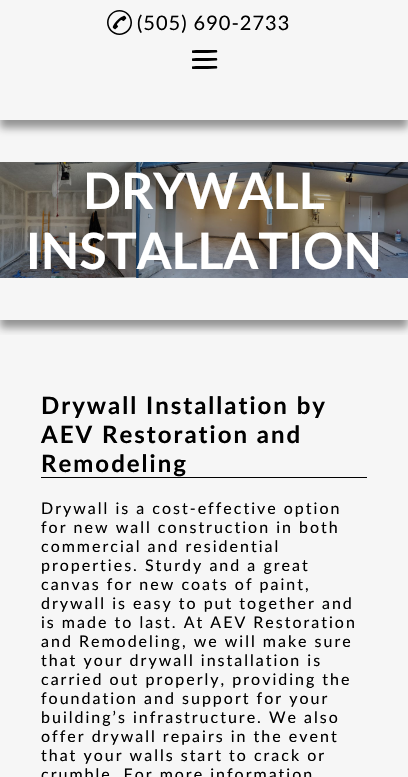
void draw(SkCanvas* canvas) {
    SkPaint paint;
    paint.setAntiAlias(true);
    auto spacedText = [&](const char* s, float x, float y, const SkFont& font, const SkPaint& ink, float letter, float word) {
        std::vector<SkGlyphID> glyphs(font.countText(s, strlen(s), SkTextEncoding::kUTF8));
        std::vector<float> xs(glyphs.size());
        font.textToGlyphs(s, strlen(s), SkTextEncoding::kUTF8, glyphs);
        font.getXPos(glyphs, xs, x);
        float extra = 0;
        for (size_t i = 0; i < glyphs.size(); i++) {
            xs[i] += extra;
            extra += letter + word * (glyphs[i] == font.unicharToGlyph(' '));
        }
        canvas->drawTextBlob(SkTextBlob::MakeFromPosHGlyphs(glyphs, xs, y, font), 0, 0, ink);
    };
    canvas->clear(0xFFF6F6F6);
    paint.setColor(0x66000000);
    paint.setMaskFilter(SkMaskFilter::MakeBlur(kNormal_SkBlurStyle, 4));
    canvas->drawRect(SkRect::MakeXYWH(0, 8, 408, 120), paint);
    paint.setMaskFilter(nullptr);
    canvas->save();
    canvas->clipRect(SkRect::MakeXYWH(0, 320, 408, 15));
    paint.setMaskFilter(SkMaskFilter::MakeBlur(kNormal_SkBlurStyle, 4));
    canvas->drawRect(SkRect::MakeXYWH(0, 128, 408, 200), paint);
    paint.setMaskFilter(nullptr);
    canvas->restore();
    paint.setColor(0xFFF6F6F6);
    canvas->drawRect(SkRect::MakeXYWH(0, 0, 408, 120), paint);
    canvas->drawImageRect(SkImages::DeferredFromEncodedData(SkData::MakeFromFileName("img1.png")), SkRect::MakeXYWH(107, 10, 25, 25), SkSamplingOptions());
    SkFont font1(fontMgr->matchFamilyStyle("Lato", SkFontStyle::Normal()), 20);
    font1.setSubpixel(true);
    paint.setColor(0xFF000000);
    spacedText("(505) 690-2733", 137, 30, font1, paint, 1, 0);
    canvas->drawPath(SkPathBuilder().moveTo(196, 50).lineTo(216.5f, 50).cubicTo(217.5f, 50.5f, 217.5f, 52.5f, 216.5f, 52.5f).lineTo(207.5f, 53).lineTo(192.5f, 53).cubicTo(192, 52.5f, 192, 52.5f, 192, 51.5f).lineTo(192, 50.5f).close().moveTo(196, 58).lineTo(216.5f, 58).cubicTo(217.5f, 58.5f, 217.5f, 60.5f, 216.5f, 60.5f).lineTo(207.5f, 61).lineTo(192.5f, 61).cubicTo(192, 60.5f, 192, 60.5f, 192, 59.5f).lineTo(192, 58.5f).close().moveTo(196, 66).lineTo(216.5f, 66).cubicTo(217.5f, 66.5f, 217.5f, 68.5f, 216.5f, 68.5f).lineTo(207.5f, 69).lineTo(192.5f, 69).cubicTo(192, 68.5f, 192, 68.5f, 192, 67.5f).lineTo(192, 66.5f).close().detach(), paint);
    canvas->drawImageRect(SkImages::DeferredFromEncodedData(SkData::MakeFromFileName("img2.png")), SkRect::MakeXYWH(0, 162, 408, 116), SkSamplingOptions());
    SkFont font2(fontMgr->matchFamilyStyle("Lato", SkFontStyle::Bold()), 50);
    font2.setSubpixel(true);
    paint.setColor(0xFFFFFFFF);
    canvas->drawString("DRYWALL", 83, 209, font2, paint);
    canvas->drawString("INSTALLATION", 26, 269, font2, paint);
    paint.setColor(0xFF000000);
    canvas->drawRect(SkRect::MakeXYWH(41, 477, 326, 1), paint);
    SkFont font3(fontMgr->matchFamilyStyle("Lato", SkFontStyle::Bold()), 24);
    font3.setSubpixel(true);
    spacedText("Drywall Installation by", 41, 414, font3, paint, 2, 0);
    spacedText("AEV Restoration and", 41, 443, font3, paint, 2, 0);
    spacedText("Remodeling", 41, 472, font3, paint, 2, 0);
    SkFont font4(fontMgr->matchFamilyStyle("Lato", SkFontStyle::Normal()), 16);
    font4.setSubpixel(true);
    spacedText("Drywall is a cost-effective option", 41, 514, font4, paint, 2, 0);
    spacedText("for new wall construction in both", 41, 533, font4, paint, 2, 0);
    spacedText("commercial and residential", 41, 552, font4, paint, 2, 0);
    spacedText("properties. Sturdy and a great", 41, 571, font4, paint, 2, 0);
    spacedText("canvas for new coats of paint,", 41, 590, font4, paint, 2, 0);
    spacedText("drywall is easy to put together and", 41, 609, font4, paint, 2, 0);
    spacedText("is made to last. At AEV Restoration", 41, 628, font4, paint, 2, 0);
    spacedText("and Remodeling, we will make sure", 41, 647, font4, paint, 2, 0);
    spacedText("that your drywall installation is", 41, 666, font4, paint, 2, 0);
    spacedText("carried out properly, providing the", 41, 685, font4, paint, 2, 0);
    spacedText("foundation and support for your", 41, 704, font4, paint, 2, 0);
    spacedText("building’s infrastructure. We also", 41, 723, font4, paint, 2, 0);
    spacedText("offer drywall repairs in the event", 41, 742, font4, paint, 2, 0);
    spacedText("that your walls start to crack or", 41, 761, font4, paint, 2, 0);
    spacedText("crumble. For more information", 41, 780, font4, paint, 2, 0);
}
